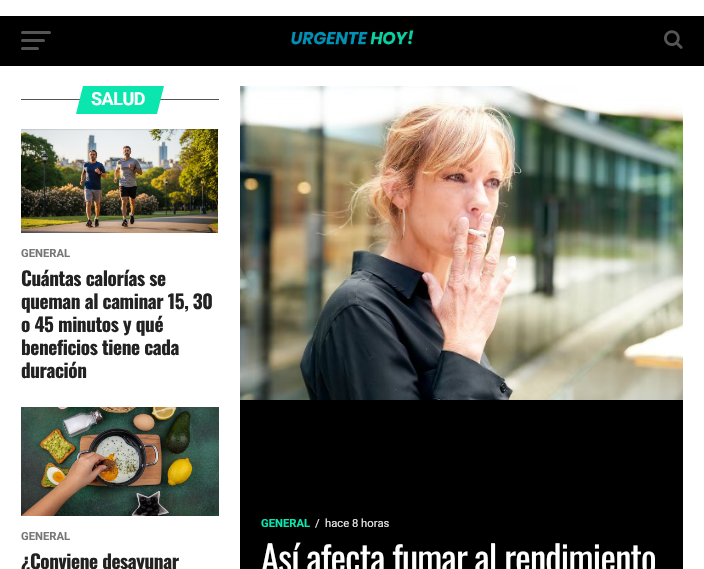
void draw(SkCanvas* canvas) {
    SkPaint paint;
    paint.setAntiAlias(true);
    auto spacedText = [&](const char* s, float x, float y, const SkFont& font, const SkPaint& ink, float letter, float word) {
        std::vector<SkGlyphID> glyphs(font.countText(s, strlen(s), SkTextEncoding::kUTF8));
        std::vector<float> xs(glyphs.size());
        font.textToGlyphs(s, strlen(s), SkTextEncoding::kUTF8, glyphs);
        font.getXPos(glyphs, xs, x);
        float extra = 0;
        for (size_t i = 0; i < glyphs.size(); i++) {
            xs[i] += extra;
            extra += letter + word * (glyphs[i] == font.unicharToGlyph(' '));
        }
        canvas->drawTextBlob(SkTextBlob::MakeFromPosHGlyphs(glyphs, xs, y, font), 0, 0, ink);
    };
    canvas->clear(0xFFFFFFFF);
    paint.setColor(0xFF000000);
    canvas->drawRect(SkRect::MakeXYWH(0, 16, 704, 50), paint);
    paint.setColor(0xFF555555);
    canvas->drawRoundRect(SkRect::MakeXYWH(21, 31, 30, 3), 1.5f, 1.5f, paint);
    canvas->drawRoundRect(SkRect::MakeXYWH(21, 39, 24, 3), 1.5f, 1.5f, paint);
    canvas->drawRoundRect(SkRect::MakeXYWH(21, 47, 18, 3), 1.5f, 1.5f, paint);
    canvas->drawImageRect(SkImages::DeferredFromEncodedData(SkData::MakeFromFileName("img1.png")), SkRect::MakeXYWH(291, 30, 123, 15), SkSamplingOptions());
    canvas->drawImageRect(SkImages::DeferredFromEncodedData(SkData::MakeFromFileName("img2.png")), SkRect::MakeXYWH(664, 30, 19, 19), SkSamplingOptions());
    canvas->drawRect(SkRect::MakeXYWH(21, 99, 198, 1), paint);
    paint.setColor(0xFF0BE6AF);
    canvas->drawPath(SkPathBuilder().moveTo(83, 86).lineTo(164, 86).lineTo(157, 114).lineTo(76, 114).close().detach(), paint);
    SkFont font1(fontMgr->matchFamilyStyle("Roboto", SkFontStyle::Bold()), 18);
    font1.setSubpixel(true);
    paint.setColor(0xFFFFFFFF);
    spacedText("SALUD", 91, 105, font1, paint, -0.5f, 0);
    canvas->drawImageRect(SkImages::DeferredFromEncodedData(SkData::MakeFromFileName("img3.png")), SkRect::MakeXYWH(21, 129, 198, 104), SkSamplingOptions());
    SkFont font2(fontMgr->matchFamilyStyle("Roboto", SkFontStyle::Bold()), 11.25f);
    font2.setSubpixel(true);
    paint.setColor(0xFF777777);
    canvas->drawString("GENERAL", 21, 257, font2, paint);
    SkFont font3(fontMgr->matchFamilyStyle("Oswald", SkFontStyle::Bold()), 19.25f);
    font3.setSubpixel(true);
    paint.setColor(0xFF222222);
    spacedText("Cuántas calorías se", 21, 286, font3, paint, -0.4f, 0);
    spacedText("queman al caminar 15, 30", 21, 309, font3, paint, -0.4f, 0);
    spacedText("o 45 minutos y qué", 21, 332, font3, paint, -0.4f, 0);
    spacedText("beneficios tiene cada", 21, 355, font3, paint, -0.4f, 0);
    spacedText("duración", 21, 378, font3, paint, -0.4f, 0);
    canvas->drawImageRect(SkImages::DeferredFromEncodedData(SkData::MakeFromFileName("img4.png")), SkRect::MakeXYWH(21, 407, 198, 109), SkSamplingOptions());
    paint.setColor(0xFF777777);
    canvas->drawString("GENERAL", 21, 540, font2, paint);
    paint.setColor(0xFF222222);
    spacedText("¿Conviene desayunar", 21, 569, font3, paint, -0.4f, 0);
    paint.setColor(0xFF000000);
    canvas->drawRect(SkRect::MakeXYWH(240, 400, 443, 169), paint);
    canvas->drawImageRect(SkImages::DeferredFromEncodedData(SkData::MakeFromFileName("img5.png")), SkRect::MakeXYWH(240, 86, 443, 314), SkSamplingOptions());
    paint.setColor(0xFF0BE6AF);
    canvas->drawString("GENERAL", 261, 527, font2, paint);
    SkFont font4(fontMgr->matchFamilyStyle("Roboto", SkFontStyle::Normal()), 11.25f);
    font4.setSubpixel(true);
    paint.setColor(0xFFEEEEEE);
    canvas->drawString("/", 315, 527, font4, paint);
    canvas->drawString("hace 8 horas", 325, 527, font4, paint);
    SkFont font5(fontMgr->matchFamilyStyle("Oswald", SkFontStyle::Normal()), 36.75f);
    font5.setSubpixel(true);
    paint.setColor(0xFFFFFFFF);
    spacedText("Así afecta fumar al rendimiento", 261, 573, font5, paint, -0.75f, 0);
}
